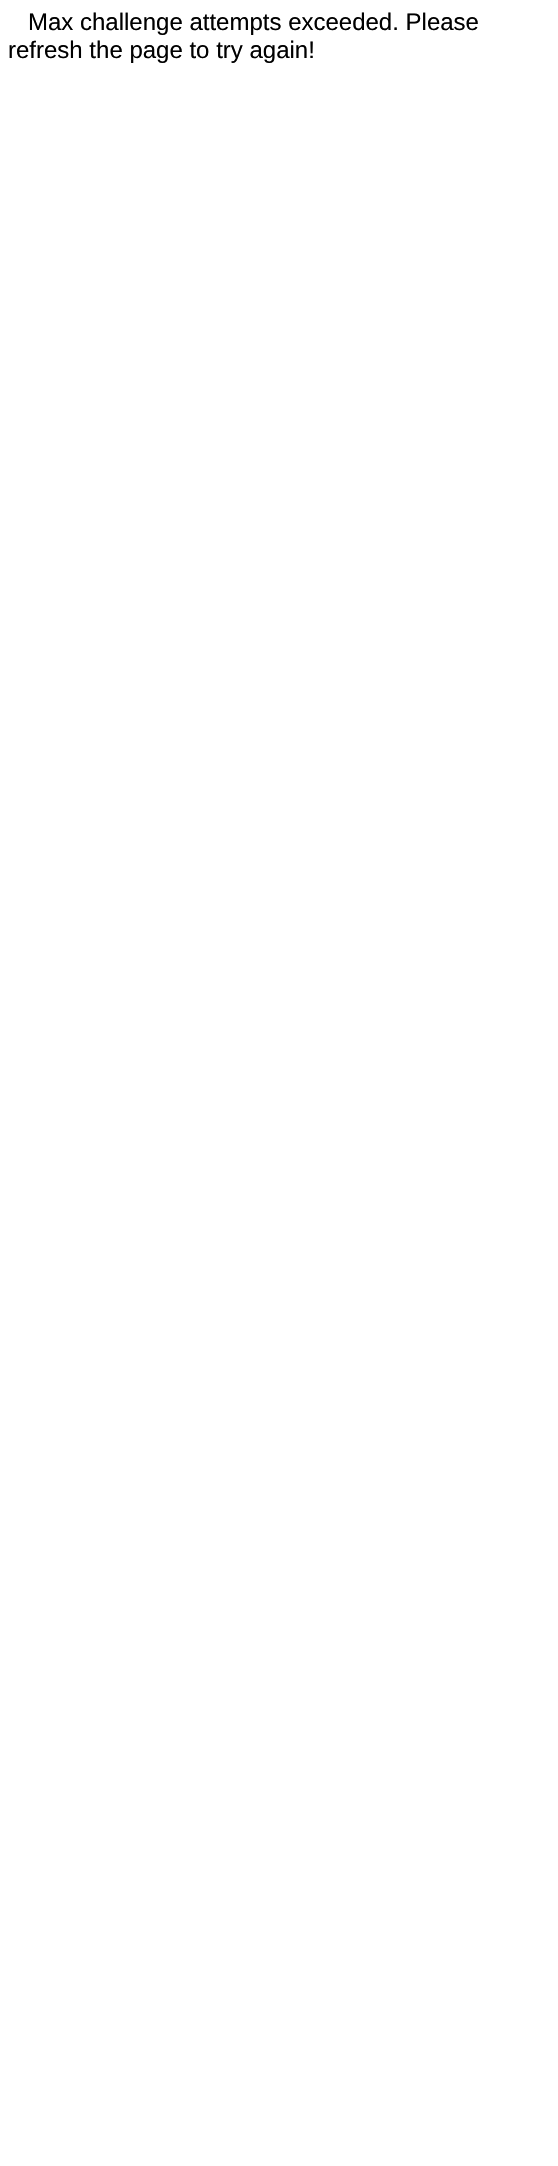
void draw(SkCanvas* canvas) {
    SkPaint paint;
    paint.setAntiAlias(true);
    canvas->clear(0xFFFFFFFF);
    SkFont font1(fontMgr->matchFamilyStyle("Liberation Sans", SkFontStyle::Normal()), 24);
    font1.setSubpixel(true);
    paint.setColor(0xFF000000);
    canvas->drawString("Max challenge attempts exceeded. Please", 28, 30, font1, paint);
    canvas->drawString("refresh the page to try again!", 8, 58, font1, paint);
}
